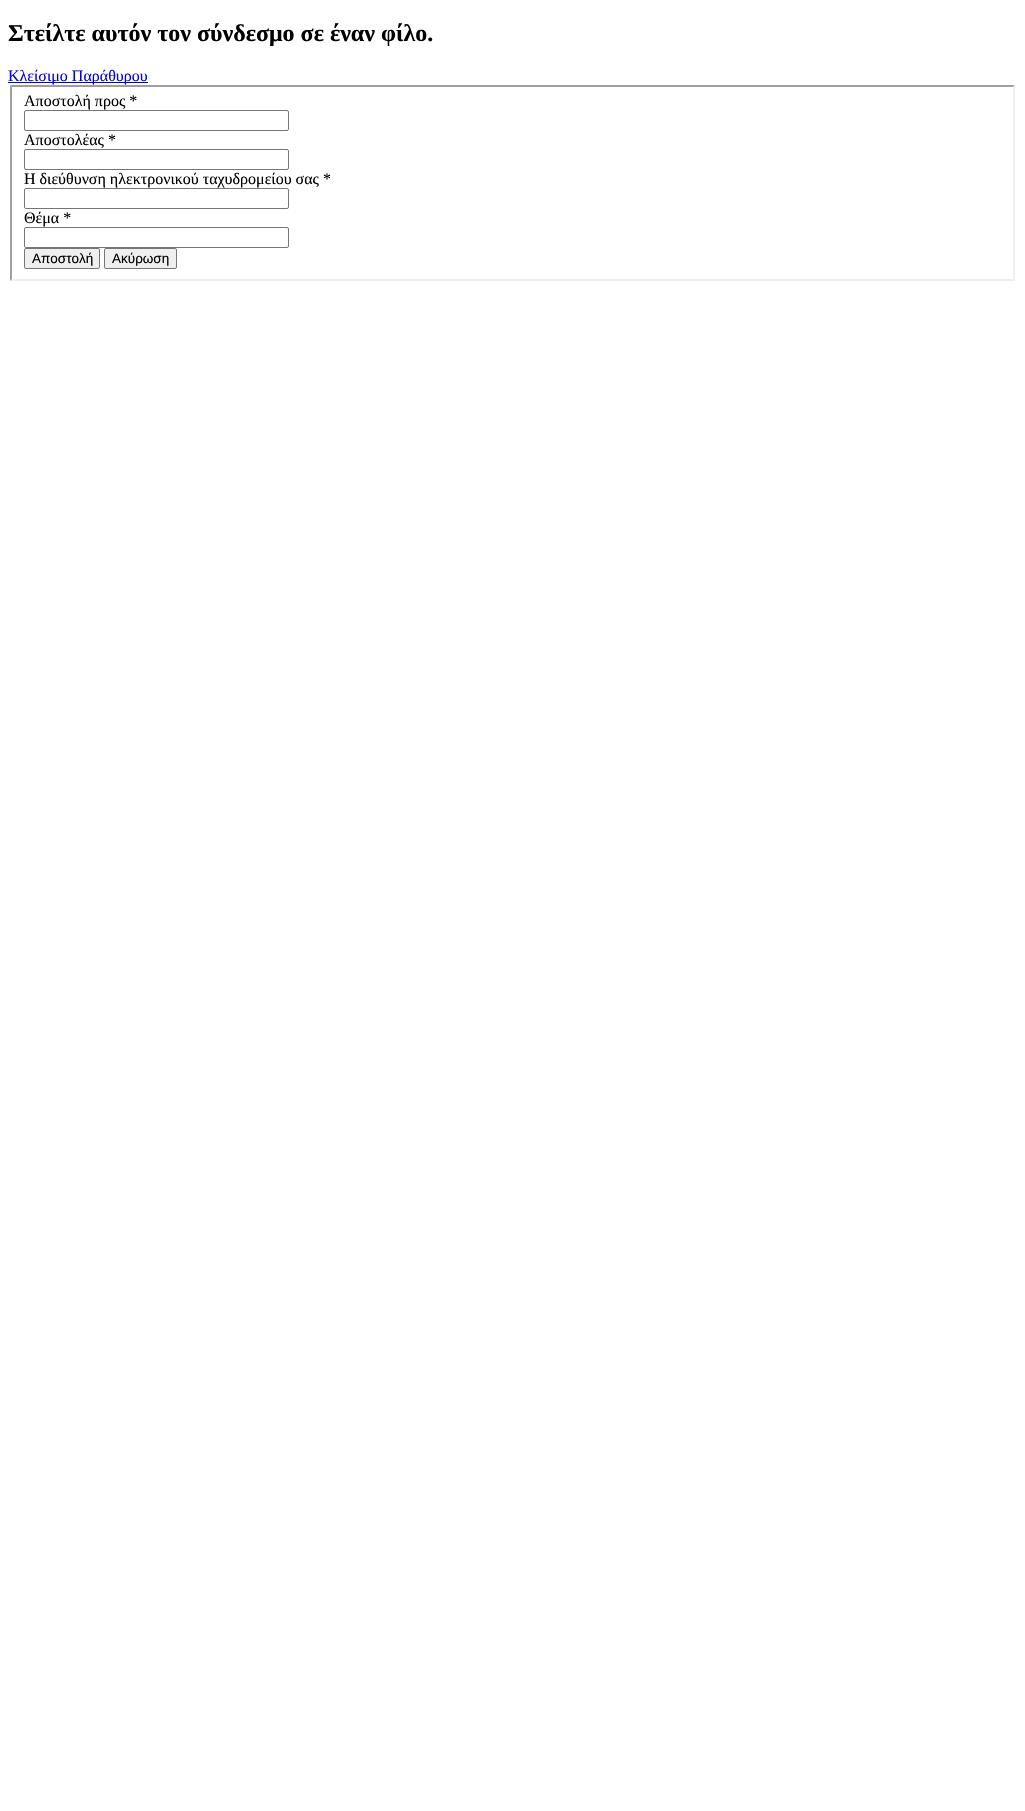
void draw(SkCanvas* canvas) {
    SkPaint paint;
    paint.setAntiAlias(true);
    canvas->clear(0xFFFFFFFF);
    SkFont font1(fontMgr->matchFamilyStyle("Liberation Serif", SkFontStyle::Bold()), 24);
    font1.setSubpixel(true);
    paint.setColor(0xFF000000);
    canvas->drawString("Στείλτε αυτόν τον σύνδεσμο σε έναν φίλο.", 8, 41, font1, paint);
    paint.setColor(0xFF0000EE);
    canvas->drawRect(SkRect::MakeXYWH(8, 82, 140, 1), paint);
    SkFont font2(fontMgr->matchFamilyStyle("Liberation Serif", SkFontStyle::Normal()), 16);
    font2.setSubpixel(true);
    canvas->drawString("Κλείσιμο Παράθυρου", 8, 81, font2, paint);
    paint.setColor(0xFF9F9F9F);
    canvas->drawPath(SkPathBuilder().moveTo(10, 85).lineTo(1015, 85).lineTo(1013, 87).lineTo(12, 87).close().detach(), paint);
    paint.setColor(0xFFEFEFEF);
    canvas->drawPath(SkPathBuilder().moveTo(1015, 85).lineTo(1015, 281).lineTo(1013, 279).lineTo(1013, 87).close().detach(), paint);
    canvas->drawPath(SkPathBuilder().moveTo(1015, 281).lineTo(10, 281).lineTo(12, 279).lineTo(1013, 279).close().detach(), paint);
    paint.setColor(0xFF9F9F9F);
    canvas->drawPath(SkPathBuilder().moveTo(10, 281).lineTo(10, 85).lineTo(12, 87).lineTo(12, 279).close().detach(), paint);
    paint.setColor(0xFF000000);
    canvas->drawString("Αποστολή προς *", 24, 106, font2, paint);
    paint.setStyle(SkPaint::kStroke_Style);
    paint.setStrokeWidth(1);
    paint.setColor(0xFF767676);
    canvas->drawRoundRect(SkRect::MakeXYWH(24.5f, 110.5f, 264, 20), 1.5f, 1.5f, paint);
    paint.setStyle(SkPaint::kFill_Style);
    paint.setColor(0xFF000000);
    canvas->drawString("Αποστολέας *", 24, 145, font2, paint);
    paint.setStyle(SkPaint::kStroke_Style);
    paint.setColor(0xFF767676);
    canvas->drawRoundRect(SkRect::MakeXYWH(24.5f, 149.5f, 264, 20), 1.5f, 1.5f, paint);
    paint.setStyle(SkPaint::kFill_Style);
    paint.setColor(0xFF000000);
    canvas->drawString("Η διεύθυνση ηλεκτρονικού ταχυδρομείου σας *", 24, 184, font2, paint);
    paint.setStyle(SkPaint::kStroke_Style);
    paint.setColor(0xFF767676);
    canvas->drawRoundRect(SkRect::MakeXYWH(24.5f, 188.5f, 264, 20), 1.5f, 1.5f, paint);
    paint.setStyle(SkPaint::kFill_Style);
    paint.setColor(0xFF000000);
    canvas->drawString("Θέμα *", 24, 223, font2, paint);
    paint.setStyle(SkPaint::kStroke_Style);
    paint.setColor(0xFF767676);
    canvas->drawRoundRect(SkRect::MakeXYWH(24.5f, 227.5f, 264, 20), 1.5f, 1.5f, paint);
    paint.setStyle(SkPaint::kFill_Style);
    paint.setColor(0xFFEFEFEF);
    canvas->drawRoundRect(SkRect::MakeXYWH(24.5f, 248.5f, 75, 20), 1.5f, 1.5f, paint);
    paint.setStyle(SkPaint::kStroke_Style);
    paint.setColor(0xFF767676);
    canvas->drawRoundRect(SkRect::MakeXYWH(24.5f, 248.5f, 75, 20), 1.5f, 1.5f, paint);
    SkFont font3(fontMgr->matchFamilyStyle("Liberation Sans", SkFontStyle::Normal()), 13.5f);
    font3.setSubpixel(true);
    paint.setStyle(SkPaint::kFill_Style);
    paint.setColor(0xFF000000);
    canvas->drawString("Αποστολή", 32, 263, font3, paint);
    paint.setColor(0xFFEFEFEF);
    canvas->drawRoundRect(SkRect::MakeXYWH(104.5f, 248.5f, 72, 20), 1.5f, 1.5f, paint);
    paint.setStyle(SkPaint::kStroke_Style);
    paint.setColor(0xFF767676);
    canvas->drawRoundRect(SkRect::MakeXYWH(104.5f, 248.5f, 72, 20), 1.5f, 1.5f, paint);
    paint.setStyle(SkPaint::kFill_Style);
    paint.setColor(0xFF000000);
    canvas->drawString("Ακύρωση", 112, 263, font3, paint);
}
